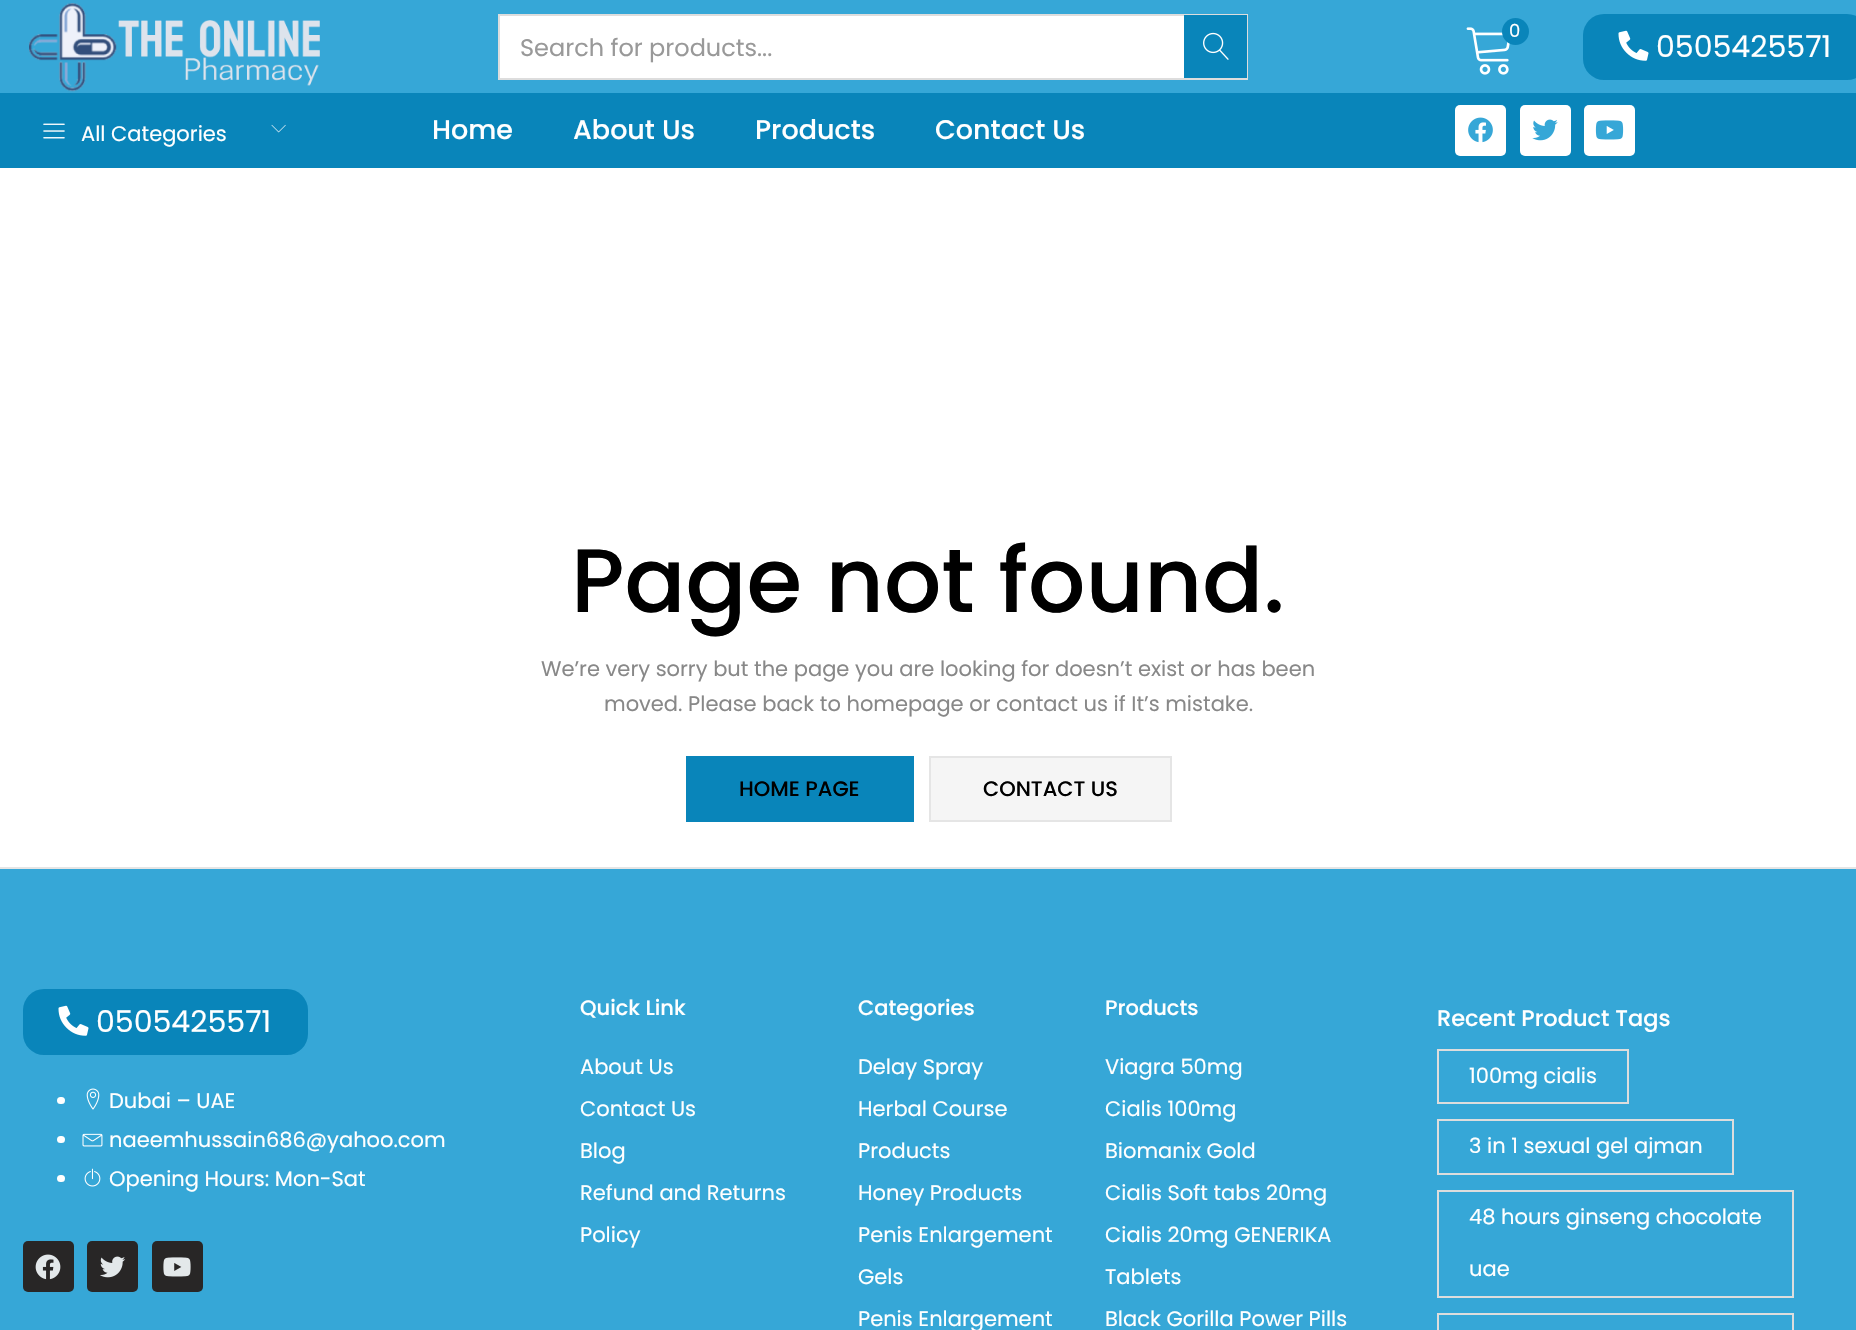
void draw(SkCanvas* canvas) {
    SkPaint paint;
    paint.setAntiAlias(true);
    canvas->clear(0xFFFFFFFF);
    paint.setColor(0xFF36A7D7);
    canvas->drawRect(SkRect::MakeXYWH(0, 0, 1856, 93), paint);
    canvas->drawImageRect(SkImages::DeferredFromEncodedData(SkData::MakeFromFileName("img1.png")), SkRect::MakeXYWH(29, 3, 291, 89), SkSamplingOptions());
    canvas->drawImageRect(SkImages::DeferredFromEncodedData(SkData::MakeFromFileName("img2.png")), SkRect::MakeXYWH(1466, 27, 44, 48), SkSamplingOptions());
    paint.setColor(0xFF0985BA);
    canvas->drawCircle(1515.5f, 31.5f, 13.5f, paint);
    SkFont font1(fontMgr->matchFamilyStyle("Poppins", SkFontStyle::Normal()), 18);
    font1.setSubpixel(true);
    paint.setColor(0xFFFFFFFF);
    canvas->drawString("0", 1509, 37, font1, paint);
    canvas->drawRect(SkRect::MakeXYWH(500, 16, 684, 62), paint);
    paint.setStyle(SkPaint::kStroke_Style);
    paint.setStrokeWidth(2);
    paint.setColor(0xFFDDDDDD);
    canvas->drawRect(SkRect::MakeXYWH(499, 15, 748, 64), paint);
    SkFont font2(fontMgr->matchFamilyStyle("Poppins", SkFontStyle::Normal()), 24);
    font2.setSubpixel(true);
    paint.setStyle(SkPaint::kFill_Style);
    paint.setColor(0xFF999999);
    canvas->drawString("Search for products...", 520, 56, font2, paint);
    paint.setColor(0xFF0985BA);
    canvas->drawRect(SkRect::MakeXYWH(1184, 15, 63, 63), paint);
    canvas->drawImageRect(SkImages::DeferredFromEncodedData(SkData::MakeFromFileName("img3.png")), SkRect::MakeXYWH(1203, 32, 26, 28), SkSamplingOptions());
    canvas->drawRoundRect(SkRect::MakeXYWH(1583, 14, 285, 66), 21, 21, paint);
    canvas->drawImageRect(SkImages::DeferredFromEncodedData(SkData::MakeFromFileName("img4.png")), SkRect::MakeXYWH(1618, 30, 31, 31), SkSamplingOptions());
    SkFont font3(fontMgr->matchFamilyStyle("Poppins", SkFontStyle::Normal()), 30);
    font3.setSubpixel(true);
    paint.setColor(0xFFFFFFFF);
    canvas->drawString("0505425571", 1656, 57, font3, paint);
    paint.setColor(0xFF0985BA);
    canvas->drawRect(SkRect::MakeXYWH(0, 93, 1856, 75), paint);
    canvas->drawImageRect(SkImages::DeferredFromEncodedData(SkData::MakeFromFileName("img5.png")), SkRect::MakeXYWH(43, 123, 22, 16), SkSamplingOptions());
    SkFont font4(fontMgr->matchFamilyStyle("Poppins", SkFontStyle::Normal()), 21);
    font4.setSubpixel(true);
    paint.setColor(0xFFFFFFFF);
    canvas->drawString("All Categories", 81, 141, font4, paint);
    canvas->drawImageRect(SkImages::DeferredFromEncodedData(SkData::MakeFromFileName("img6.png")), SkRect::MakeXYWH(271, 124, 15, 9), SkSamplingOptions());
    SkFont font5(fontMgr->matchFamilyStyle("Poppins", SkFontStyle(500, SkFontStyle::kNormal_Width, SkFontStyle::kUpright_Slant)), 27);
    font5.setSubpixel(true);
    canvas->drawString("Home", 432, 139, font5, paint);
    canvas->drawString("About Us", 573, 139, font5, paint);
    canvas->drawString("Products", 755, 139, font5, paint);
    canvas->drawString("Contact Us", 935, 139, font5, paint);
    canvas->drawRoundRect(SkRect::MakeXYWH(1455, 105, 51, 51), 5, 5, paint);
    canvas->drawImageRect(SkImages::DeferredFromEncodedData(SkData::MakeFromFileName("img7.png")), SkRect::MakeXYWH(1468, 117, 25, 26), SkSamplingOptions());
    canvas->drawRoundRect(SkRect::MakeXYWH(1520, 105, 51, 51), 5, 5, paint);
    canvas->drawImageRect(SkImages::DeferredFromEncodedData(SkData::MakeFromFileName("img8.png")), SkRect::MakeXYWH(1532, 119, 26, 22), SkSamplingOptions());
    canvas->drawRoundRect(SkRect::MakeXYWH(1584, 105, 51, 51), 5, 5, paint);
    canvas->drawImageRect(SkImages::DeferredFromEncodedData(SkData::MakeFromFileName("img9.png")), SkRect::MakeXYWH(1595, 120, 29, 20), SkSamplingOptions());
    SkFont font6(fontMgr->matchFamilyStyle("Poppins", SkFontStyle(500, SkFontStyle::kNormal_Width, SkFontStyle::kUpright_Slant)), 90);
    font6.setSubpixel(true);
    paint.setColor(0xFF000000);
    canvas->drawString("Page not found.", 571, 612, font6, paint);
    paint.setColor(0xFF888888);
    canvas->drawString("We’re very sorry but the page you are looking for doesn’t exist or has been", 541, 676, font4, paint);
    canvas->drawString("moved. Please back to homepage or contact us if It’s mistake.", 604, 711, font4, paint);
    paint.setColor(0xFF0985BA);
    canvas->drawRect(SkRect::MakeXYWH(686, 756, 228, 66), paint);
    SkFont font7(fontMgr->matchFamilyStyle("Poppins", SkFontStyle(500, SkFontStyle::kNormal_Width, SkFontStyle::kUpright_Slant)), 21);
    font7.setSubpixel(true);
    paint.setColor(0xFF000000);
    canvas->drawString("HOME PAGE", 739, 796, font7, paint);
    paint.setColor(0xFFF5F5F5);
    canvas->drawRect(SkRect::MakeXYWH(930, 757, 241, 64), paint);
    paint.setStyle(SkPaint::kStroke_Style);
    paint.setColor(0xFFE5E5E5);
    canvas->drawRect(SkRect::MakeXYWH(930, 757, 241, 64), paint);
    paint.setStyle(SkPaint::kFill_Style);
    paint.setColor(0xFF000000);
    canvas->drawString("CONTACT US", 983, 796, font7, paint);
    paint.setColor(0xFF36A7D7);
    canvas->drawRect(SkRect::MakeXYWH(0, 869, 1856, 461), paint);
    paint.setColor(0xFFE5E5E5);
    canvas->drawRect(SkRect::MakeXYWH(0, 867, 1856, 2), paint);
    paint.setColor(0xFF0985BA);
    canvas->drawRoundRect(SkRect::MakeXYWH(23, 989, 285, 66), 21, 21, paint);
    canvas->drawImageRect(SkImages::DeferredFromEncodedData(SkData::MakeFromFileName("img4.png")), SkRect::MakeXYWH(58, 1005, 31, 31), SkSamplingOptions());
    paint.setColor(0xFFFFFFFF);
    canvas->drawString("0505425571", 96, 1032, font3, paint);
    canvas->drawRoundRect(SkRect::MakeXYWH(57, 1097, 8, 7), 3.5f, 3.5f, paint);
    canvas->drawImageRect(SkImages::DeferredFromEncodedData(SkData::MakeFromFileName("img10.png")), SkRect::MakeXYWH(86, 1088, 14, 22), SkSamplingOptions());
    canvas->drawString("Dubai – UAE", 109, 1108, font4, paint);
    canvas->drawRoundRect(SkRect::MakeXYWH(57, 1136, 8, 7), 3.5f, 3.5f, paint);
    canvas->drawImageRect(SkImages::DeferredFromEncodedData(SkData::MakeFromFileName("img11.png")), SkRect::MakeXYWH(82, 1133, 21, 14), SkSamplingOptions());
    canvas->drawString("naeemhussain686@yahoo.com", 109, 1147, font4, paint);
    canvas->drawRoundRect(SkRect::MakeXYWH(57, 1175, 8, 7), 3.5f, 3.5f, paint);
    canvas->drawImageRect(SkImages::DeferredFromEncodedData(SkData::MakeFromFileName("img12.png")), SkRect::MakeXYWH(84, 1168, 17, 19), SkSamplingOptions());
    canvas->drawString("Opening Hours: Mon-Sat", 109, 1186, font4, paint);
    paint.setColor(0xFF282626);
    canvas->drawRoundRect(SkRect::MakeXYWH(23, 1241, 51, 51), 5, 5, paint);
    canvas->drawImageRect(SkImages::DeferredFromEncodedData(SkData::MakeFromFileName("img13.png")), SkRect::MakeXYWH(35, 1254, 26, 26), SkSamplingOptions());
    canvas->drawRoundRect(SkRect::MakeXYWH(87, 1241, 51, 51), 5, 5, paint);
    canvas->drawImageRect(SkImages::DeferredFromEncodedData(SkData::MakeFromFileName("img14.png")), SkRect::MakeXYWH(100, 1256, 26, 22), SkSamplingOptions());
    canvas->drawRoundRect(SkRect::MakeXYWH(152, 1241, 51, 51), 5, 5, paint);
    canvas->drawImageRect(SkImages::DeferredFromEncodedData(SkData::MakeFromFileName("img15.png")), SkRect::MakeXYWH(163, 1257, 28, 20), SkSamplingOptions());
    paint.setColor(0xFFFFFFFF);
    canvas->drawString("Quick Link", 580, 1015, font7, paint);
    canvas->drawString("About Us", 580, 1074, font4, paint);
    canvas->drawString("Contact Us", 580, 1116, font4, paint);
    canvas->drawString("Blog", 580, 1158, font4, paint);
    canvas->drawString("Refund and Returns", 580, 1200, font4, paint);
    canvas->drawString("Policy", 580, 1242, font4, paint);
    canvas->drawString("Categories", 858, 1015, font7, paint);
    canvas->drawString("Delay Spray", 858, 1074, font4, paint);
    canvas->drawString("Herbal Course", 858, 1116, font4, paint);
    canvas->drawString("Products", 858, 1158, font4, paint);
    canvas->drawString("Honey Products", 858, 1200, font4, paint);
    canvas->drawString("Penis Enlargement", 858, 1242, font4, paint);
    canvas->drawString("Gels", 858, 1284, font4, paint);
    canvas->drawString("Penis Enlargement", 858, 1326, font4, paint);
    canvas->drawString("Products", 1105, 1015, font7, paint);
    canvas->drawString("Viagra 50mg", 1105, 1074, font4, paint);
    canvas->drawString("Cialis 100mg", 1105, 1116, font4, paint);
    canvas->drawString("Biomanix Gold", 1105, 1158, font4, paint);
    canvas->drawString("Cialis Soft tabs 20mg", 1105, 1200, font4, paint);
    canvas->drawString("Cialis 20mg GENERIKA", 1105, 1242, font4, paint);
    canvas->drawString("Tablets", 1105, 1284, font4, paint);
    canvas->drawString("Black Gorilla Power Pills", 1105, 1326, font4, paint);
    SkFont font8(fontMgr->matchFamilyStyle("Poppins", SkFontStyle(500, SkFontStyle::kNormal_Width, SkFontStyle::kUpright_Slant)), 22.5f);
    font8.setSubpixel(true);
    canvas->drawString("Recent Product Tags", 1437, 1026, font8, paint);
    paint.setStyle(SkPaint::kStroke_Style);
    paint.setColor(0xFFDDDDDD);
    canvas->drawRect(SkRect::MakeXYWH(1438, 1050, 190, 53), paint);
    paint.setStyle(SkPaint::kFill_Style);
    paint.setColor(0xFFFFFFFF);
    canvas->drawString("100mg cialis", 1469, 1083, font4, paint);
    paint.setStyle(SkPaint::kStroke_Style);
    paint.setColor(0xFFDDDDDD);
    canvas->drawRect(SkRect::MakeXYWH(1438, 1120, 295, 54), paint);
    paint.setStyle(SkPaint::kFill_Style);
    paint.setColor(0xFFFFFFFF);
    canvas->drawString("3 in 1 sexual gel ajman", 1469, 1153, font4, paint);
    paint.setStyle(SkPaint::kStroke_Style);
    paint.setColor(0xFFDDDDDD);
    canvas->drawRect(SkRect::MakeXYWH(1438, 1191, 355, 106), paint);
    paint.setStyle(SkPaint::kFill_Style);
    paint.setColor(0xFFFFFFFF);
    canvas->drawString("48 hours ginseng chocolate", 1469, 1224, font4, paint);
    canvas->drawString("uae", 1469, 1276, font4, paint);
    paint.setStyle(SkPaint::kStroke_Style);
    paint.setColor(0xFFDDDDDD);
    canvas->drawRect(SkRect::MakeXYWH(1438, 1314, 355, 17), paint);
}
